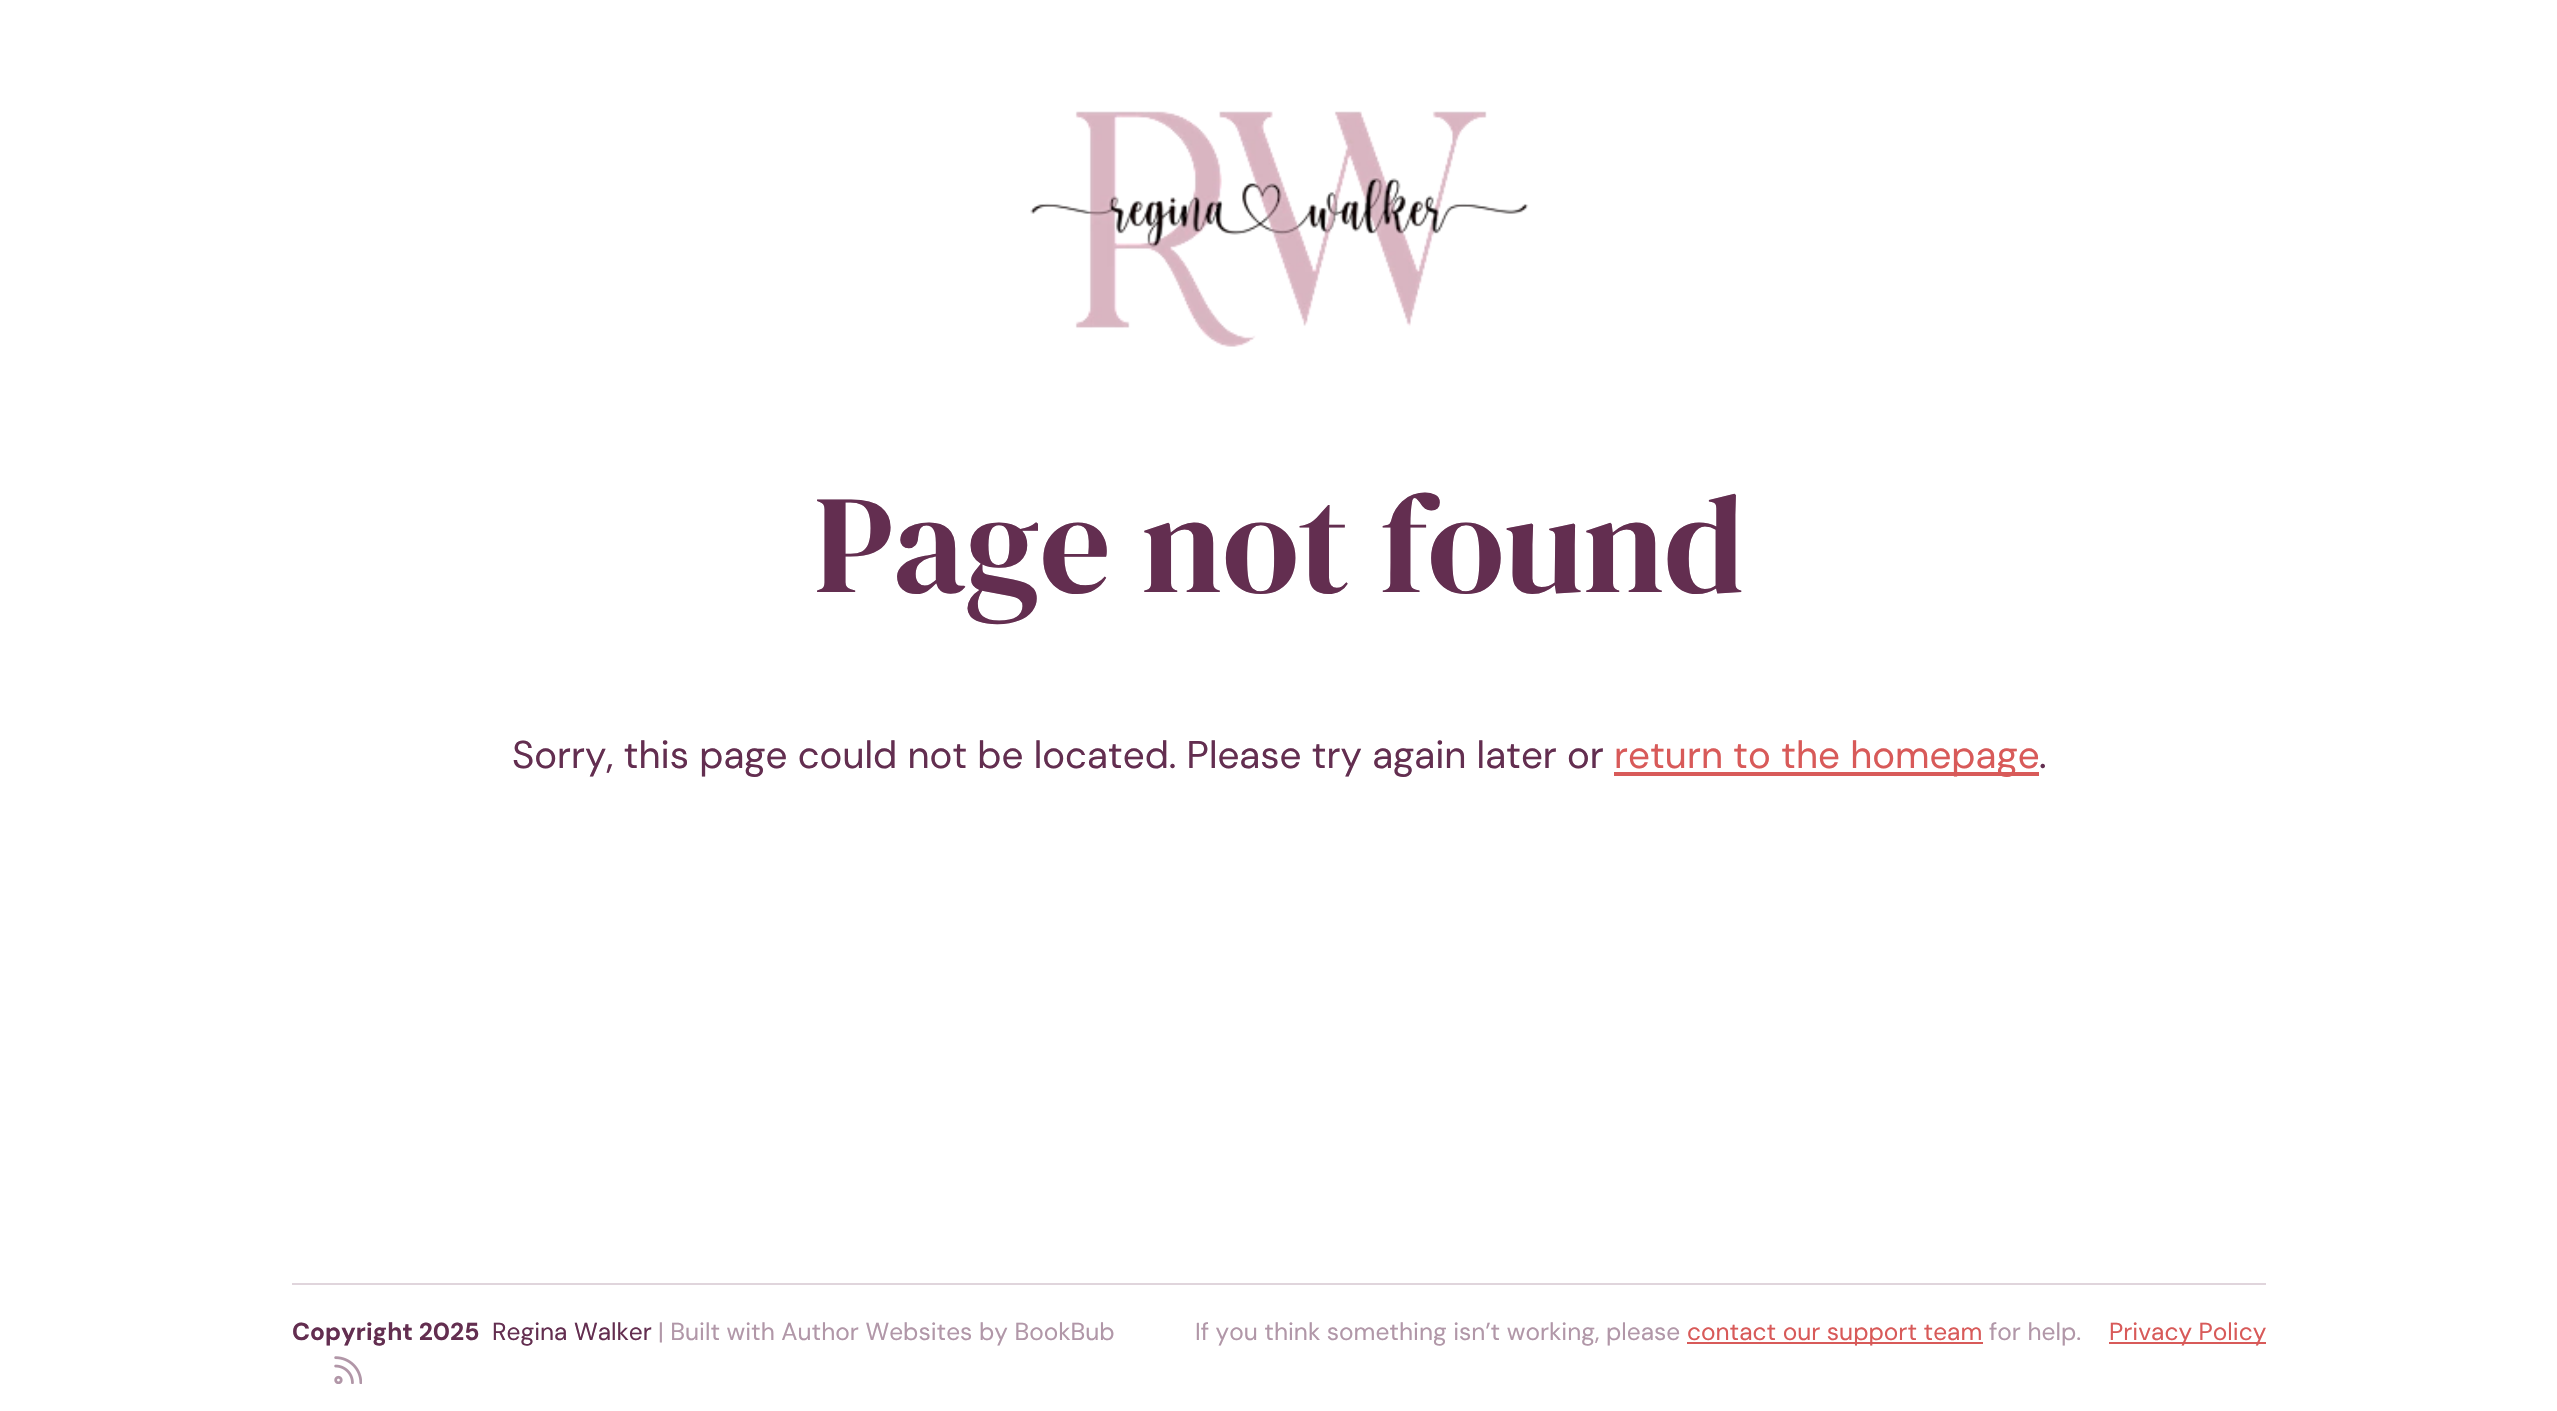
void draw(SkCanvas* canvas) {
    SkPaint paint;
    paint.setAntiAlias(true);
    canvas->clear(0xFFFFFFFF);
    canvas->drawImageRect(SkImages::DeferredFromEncodedData(SkData::MakeFromFileName("img1.png")), SkRect::MakeXYWH(1030, 111, 499, 236), SkSamplingOptions());
    SkFont font1(fontMgr->matchFamilyStyle("DM Serif Display", SkFontStyle::Normal()), 140);
    font1.setSubpixel(true);
    paint.setColor(0xFF632E50);
    canvas->drawString("Page not found", 814, 592, font1, paint);
    SkFont font2(fontMgr->matchFamilyStyle("DM Sans", SkFontStyle::Normal()), 38.5f);
    font2.setSubpixel(true);
    canvas->drawString("Sorry, this page could not be located. Please try again later or", 512, 768, font2, paint);
    paint.setColor(0xFFD85A59);
    canvas->drawRect(SkRect::MakeXYWH(1614, 772, 425, 4), paint);
    canvas->drawString("return to the homepage", 1614, 768, font2, paint);
    paint.setColor(0xFF632E50);
    canvas->drawString(".", 2039, 768, font2, paint);
    paint.setColor(0xFFE0D5DC);
    canvas->drawRect(SkRect::MakeXYWH(292, 1283, 1974, 2), paint);
    SkFont font3(fontMgr->matchFamilyStyle("DM Sans", SkFontStyle::Bold()), 24.5f);
    font3.setSubpixel(true);
    paint.setColor(0xFF632E50);
    canvas->drawString("Copyright 2025", 292, 1340, font3, paint);
    SkFont font4(fontMgr->matchFamilyStyle("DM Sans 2", SkFontStyle::Normal()), 24.5f);
    font4.setSubpixel(true);
    canvas->drawString("Regina Walker", 492, 1340, font4, paint);
    paint.setColor(0xFFB197A8);
    canvas->drawString("| Built with Author Websites by BookBub", 658, 1340, font4, paint);
    canvas->drawString("If you think something isn’t working, please", 1195, 1340, font4, paint);
    paint.setColor(0xFFD85A59);
    canvas->drawRect(SkRect::MakeXYWH(1687, 1342, 296, 2), paint);
    canvas->drawString("contact our support team", 1687, 1340, font4, paint);
    paint.setColor(0xFFB197A8);
    canvas->drawString("for help.", 1989, 1340, font4, paint);
    paint.setColor(0xFFD85A59);
    canvas->drawRect(SkRect::MakeXYWH(2109, 1342, 157, 2), paint);
    canvas->drawString("Privacy Policy", 2109, 1340, font4, paint);
    canvas->drawImageRect(SkImages::DeferredFromEncodedData(SkData::MakeFromFileName("img2.png")), SkRect::MakeXYWH(334, 1356, 28, 28), SkSamplingOptions());
}
